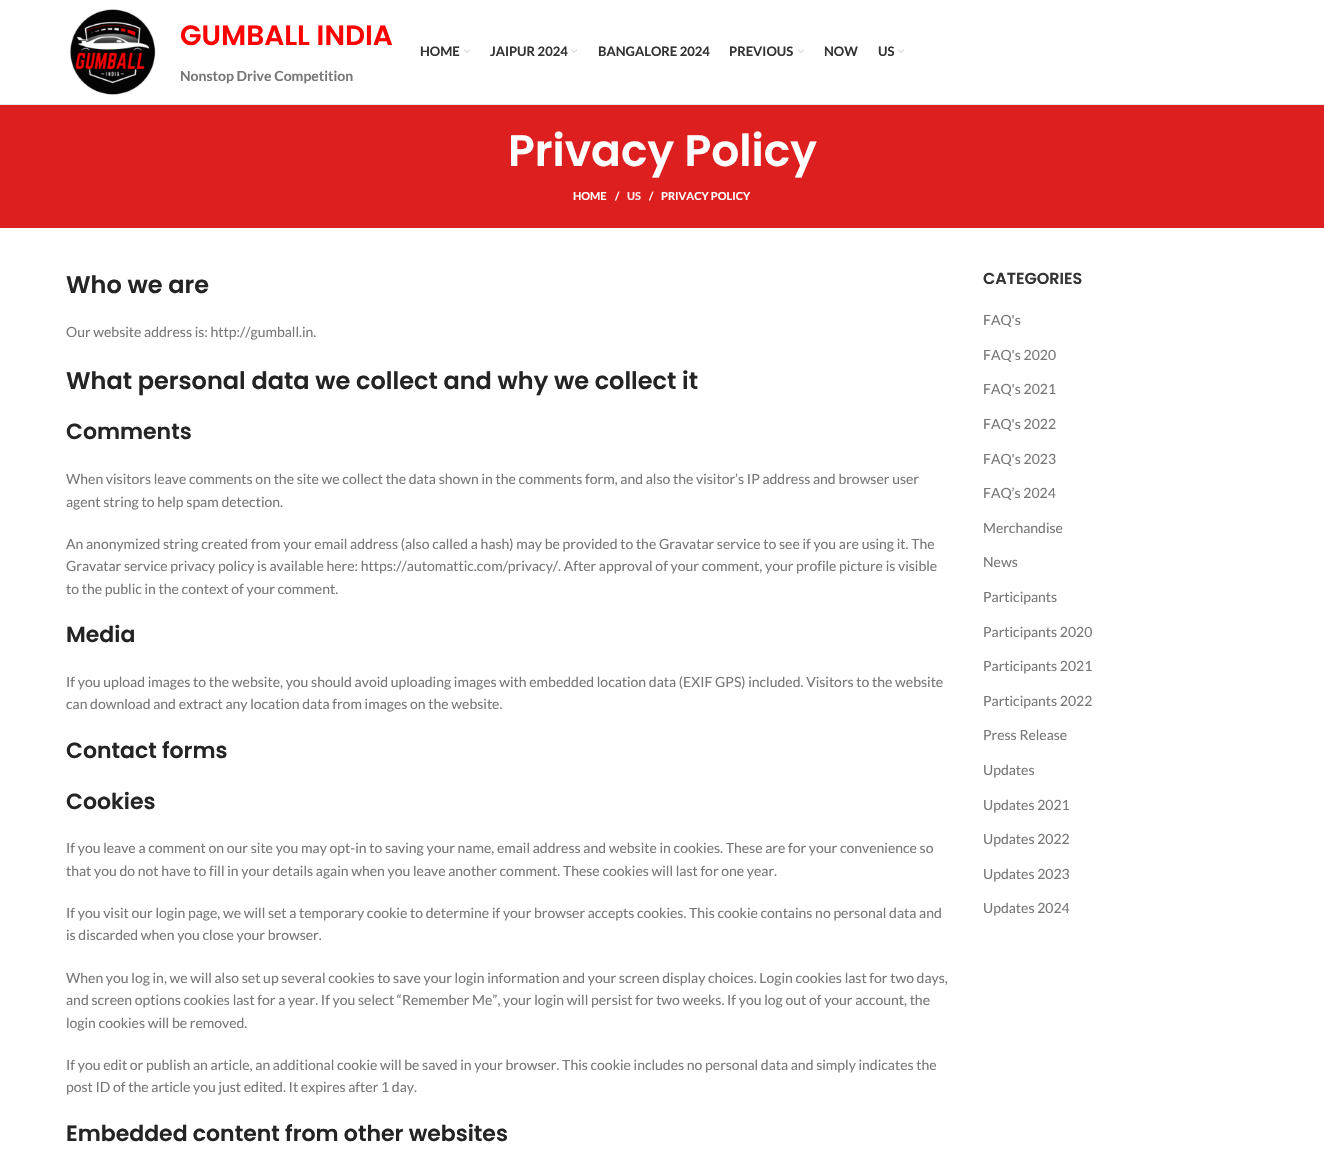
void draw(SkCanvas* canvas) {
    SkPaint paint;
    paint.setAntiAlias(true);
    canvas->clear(0xFFFFFFFF);
    paint.setColor(0xFFE6E6E6);
    canvas->drawRect(SkRect::MakeXYWH(0, 104, 1324, 1), paint);
    canvas->drawImageRect(SkImages::DeferredFromEncodedData(SkData::MakeFromFileName("img1.png")), SkRect::MakeXYWH(70, 9, 86, 86), SkSamplingOptions());
    SkFont font1(fontMgr->matchFamilyStyle("Poppins", SkFontStyle(600, SkFontStyle::kNormal_Width, SkFontStyle::kUpright_Slant)), 28);
    font1.setSubpixel(true);
    paint.setColor(0xFFFF0000);
    canvas->drawString("GUMBALL INDIA", 180, 45, font1, paint);
    SkFont font2(fontMgr->matchFamilyStyle("Lato", SkFontStyle::Bold()), 14);
    font2.setSubpixel(true);
    paint.setColor(0xFF777777);
    canvas->drawString("Nonstop Drive Competition", 180, 81, font2, paint);
    SkFont font3(fontMgr->matchFamilyStyle("Lato", SkFontStyle::Bold()), 13);
    font3.setSubpixel(true);
    paint.setColor(0xFF333333);
    canvas->drawString("HOME", 420, 56, font3, paint);
    canvas->drawImageRect(SkImages::DeferredFromEncodedData(SkData::MakeFromFileName("img2.png")), SkRect::MakeXYWH(464, 49, 6, 4), SkSamplingOptions());
    canvas->drawString("JAIPUR 2024", 490, 56, font3, paint);
    canvas->drawImageRect(SkImages::DeferredFromEncodedData(SkData::MakeFromFileName("img2.png")), SkRect::MakeXYWH(571, 49, 6, 4), SkSamplingOptions());
    canvas->drawString("BANGALORE 2024", 598, 56, font3, paint);
    canvas->drawString("PREVIOUS", 729, 56, font3, paint);
    canvas->drawImageRect(SkImages::DeferredFromEncodedData(SkData::MakeFromFileName("img2.png")), SkRect::MakeXYWH(798, 49, 6, 4), SkSamplingOptions());
    canvas->drawString("NOW", 824, 56, font3, paint);
    canvas->drawString("US", 878, 56, font3, paint);
    canvas->drawImageRect(SkImages::DeferredFromEncodedData(SkData::MakeFromFileName("img2.png")), SkRect::MakeXYWH(898, 49, 6, 4), SkSamplingOptions());
    paint.setColor(0xFFDD1F1F);
    canvas->drawRect(SkRect::MakeXYWH(0, 105, 1324, 123), paint);
    SkFont font4(fontMgr->matchFamilyStyle("Poppins", SkFontStyle(600, SkFontStyle::kNormal_Width, SkFontStyle::kUpright_Slant)), 44);
    font4.setSubpixel(true);
    paint.setColor(0xFFFFFFFF);
    canvas->drawString("Privacy Policy", 508, 166, font4, paint);
    SkFont font5(fontMgr->matchFamilyStyle("Lato", SkFontStyle::Bold()), 11);
    font5.setSubpixel(true);
    canvas->drawString("HOME", 573, 200, font5, paint);
    canvas->drawString("/", 615, 200, font5, paint);
    paint.setColor(0xFFFCE9E9);
    canvas->drawString("US", 627, 200, font5, paint);
    paint.setColor(0xFFFFFFFF);
    canvas->drawString("/", 649, 200, font5, paint);
    canvas->drawString("PRIVACY POLICY", 661, 200, font5, paint);
    SkFont font6(fontMgr->matchFamilyStyle("Poppins", SkFontStyle(600, SkFontStyle::kNormal_Width, SkFontStyle::kUpright_Slant)), 24);
    font6.setSubpixel(true);
    paint.setColor(0xFF242424);
    canvas->drawString("Who we are", 66, 293, font6, paint);
    SkFont font7(fontMgr->matchFamilyStyle("Lato", SkFontStyle::Normal()), 14);
    font7.setSubpixel(true);
    paint.setColor(0xFF777777);
    canvas->drawString("Our website address is: http://gumball.in.", 66, 337, font7, paint);
    paint.setColor(0xFF242424);
    canvas->drawString("What personal data we collect and why we collect it", 66, 389, font6, paint);
    SkFont font8(fontMgr->matchFamilyStyle("Poppins", SkFontStyle(600, SkFontStyle::kNormal_Width, SkFontStyle::kUpright_Slant)), 22);
    font8.setSubpixel(true);
    canvas->drawString("Comments", 66, 439, font8, paint);
    paint.setColor(0xFF777777);
    canvas->drawString("When visitors leave comments on the site we collect the data shown in the comments form, and also the visitor’s IP address and browser user", 66, 484, font7, paint);
    canvas->drawString("agent string to help spam detection.", 66, 507, font7, paint);
    canvas->drawString("An anonymized string created from your email address (also called a hash) may be provided to the Gravatar service to see if you are using it. The", 66, 549, font7, paint);
    canvas->drawString("Gravatar service privacy policy is available here: https://automattic.com/privacy/. After approval of your comment, your profile picture is visible", 66, 571, font7, paint);
    canvas->drawString("to the public in the context of your comment.", 66, 594, font7, paint);
    paint.setColor(0xFF242424);
    canvas->drawString("Media", 66, 642, font8, paint);
    paint.setColor(0xFF777777);
    canvas->drawString("If you upload images to the website, you should avoid uploading images with embedded location data (EXIF GPS) included. Visitors to the website", 66, 687, font7, paint);
    canvas->drawString("can download and extract any location data from images on the website.", 66, 709, font7, paint);
    paint.setColor(0xFF242424);
    canvas->drawString("Contact forms", 66, 758, font8, paint);
    canvas->drawString("Cookies", 66, 809, font8, paint);
    paint.setColor(0xFF777777);
    canvas->drawString("If you leave a comment on our site you may opt-in to saving your name, email address and website in cookies. These are for your convenience so", 66, 853, font7, paint);
    canvas->drawString("that you do not have to fill in your details again when you leave another comment. These cookies will last for one year.", 66, 876, font7, paint);
    canvas->drawString("If you visit our login page, we will set a temporary cookie to determine if your browser accepts cookies. This cookie contains no personal data and", 66, 918, font7, paint);
    canvas->drawString("is discarded when you close your browser.", 66, 940, font7, paint);
    canvas->drawString("When you log in, we will also set up several cookies to save your login information and your screen display choices. Login cookies last for two days,", 66, 983, font7, paint);
    canvas->drawString("and screen options cookies last for a year. If you select “Remember Me”, your login will persist for two weeks. If you log out of your account, the", 66, 1005, font7, paint);
    canvas->drawString("login cookies will be removed.", 66, 1028, font7, paint);
    canvas->drawString("If you edit or publish an article, an additional cookie will be saved in your browser. This cookie includes no personal data and simply indicates the", 66, 1070, font7, paint);
    canvas->drawString("post ID of the article you just edited. It expires after 1 day.", 66, 1092, font7, paint);
    paint.setColor(0xFF242424);
    canvas->drawString("Embedded content from other websites", 66, 1141, font8, paint);
    SkFont font9(fontMgr->matchFamilyStyle("Poppins", SkFontStyle(600, SkFontStyle::kNormal_Width, SkFontStyle::kUpright_Slant)), 16);
    font9.setSubpixel(true);
    paint.setColor(0xFF333333);
    canvas->drawString("CATEGORIES", 983, 284, font9, paint);
    paint.setColor(0xFF777777);
    canvas->drawString("FAQ's", 983, 325, font7, paint);
    canvas->drawString("FAQ's 2020", 983, 360, font7, paint);
    canvas->drawString("FAQ's 2021", 983, 394, font7, paint);
    canvas->drawString("FAQ's 2022", 983, 429, font7, paint);
    canvas->drawString("FAQ's 2023", 983, 464, font7, paint);
    canvas->drawString("FAQ’s 2024", 983, 498, font7, paint);
    canvas->drawString("Merchandise", 983, 533, font7, paint);
    canvas->drawString("News", 983, 567, font7, paint);
    canvas->drawString("Participants", 983, 602, font7, paint);
    canvas->drawString("Participants 2020", 983, 637, font7, paint);
    canvas->drawString("Participants 2021", 983, 671, font7, paint);
    canvas->drawString("Participants 2022", 983, 706, font7, paint);
    canvas->drawString("Press Release", 983, 740, font7, paint);
    canvas->drawString("Updates", 983, 775, font7, paint);
    canvas->drawString("Updates 2021", 983, 810, font7, paint);
    canvas->drawString("Updates 2022", 983, 844, font7, paint);
    canvas->drawString("Updates 2023", 983, 879, font7, paint);
    canvas->drawString("Updates 2024", 983, 913, font7, paint);
}
